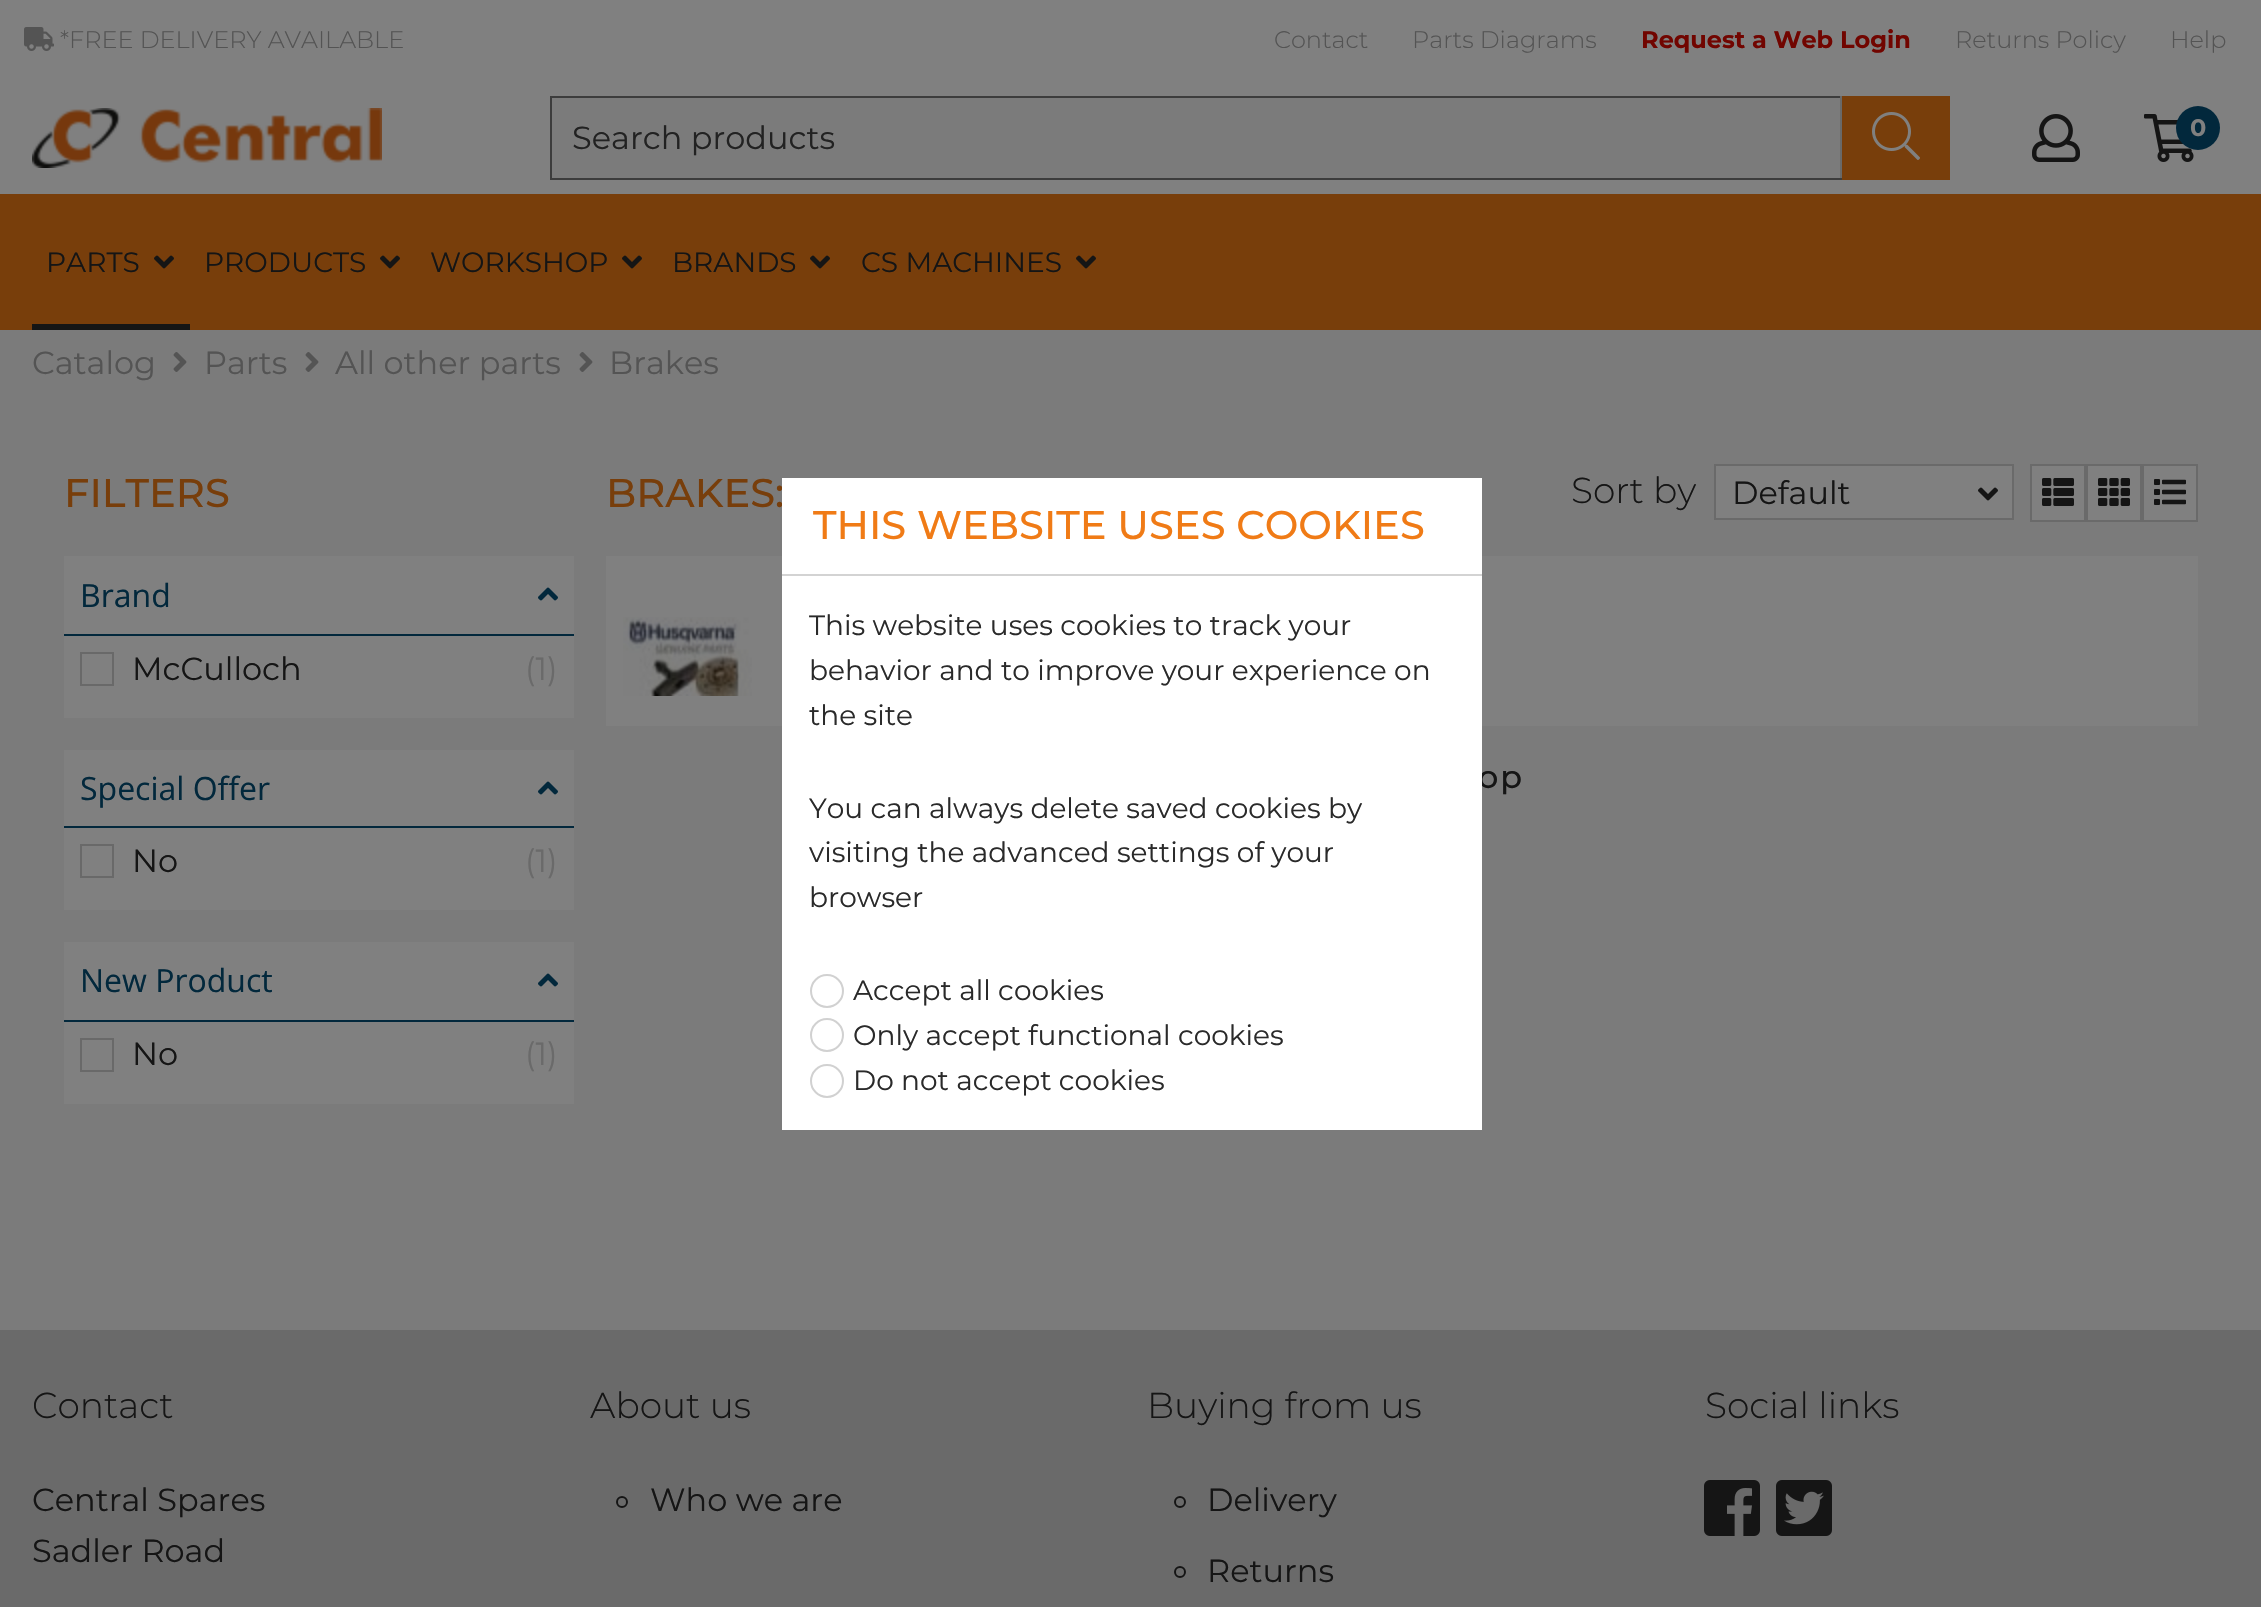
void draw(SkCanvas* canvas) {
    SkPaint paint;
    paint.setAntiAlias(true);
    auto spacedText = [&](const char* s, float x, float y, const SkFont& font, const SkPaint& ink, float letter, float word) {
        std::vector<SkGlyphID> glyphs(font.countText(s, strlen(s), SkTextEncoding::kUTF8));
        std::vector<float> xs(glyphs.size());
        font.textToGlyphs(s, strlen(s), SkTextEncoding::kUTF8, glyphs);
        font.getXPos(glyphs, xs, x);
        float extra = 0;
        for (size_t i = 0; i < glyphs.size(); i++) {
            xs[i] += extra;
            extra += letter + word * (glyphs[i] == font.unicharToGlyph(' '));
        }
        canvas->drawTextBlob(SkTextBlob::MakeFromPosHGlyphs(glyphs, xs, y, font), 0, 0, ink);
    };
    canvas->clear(0xFF6A6A6A);
    paint.setColor(0xFF7B7B7B);
    canvas->drawRect(SkRect::MakeXYWH(0, 330, 2261, 1000), paint);
    paint.setColor(0xFF808080);
    canvas->drawRect(SkRect::MakeXYWH(0, 0, 2261, 194), paint);
    canvas->drawImageRect(SkImages::DeferredFromEncodedData(SkData::MakeFromFileName("img1.png")), SkRect::MakeXYWH(24, 27, 30, 24), SkSamplingOptions());
    SkFont font1(fontMgr->matchFamilyStyle("Montserrat", SkFontStyle(300, SkFontStyle::kNormal_Width, SkFontStyle::kUpright_Slant)), 24);
    font1.setSubpixel(true);
    paint.setColor(0xFF545454);
    canvas->drawString("*FREE DELIVERY AVAILABLE", 60, 48, font1, paint);
    canvas->drawString("Contact", 1274, 48, font1, paint);
    canvas->drawString("Parts Diagrams", 1412, 48, font1, paint);
    SkFont font2(fontMgr->matchFamilyStyle("Montserrat", SkFontStyle::Bold()), 24);
    font2.setSubpixel(true);
    paint.setColor(0xFF710500);
    canvas->drawString("Request a Web Login", 1641, 48, font2, paint);
    paint.setColor(0xFF545454);
    canvas->drawString("Returns Policy", 1955, 48, font1, paint);
    canvas->drawString("Help", 2170, 48, font1, paint);
    canvas->drawImageRect(SkImages::DeferredFromEncodedData(SkData::MakeFromFileName("img2.png")), SkRect::MakeXYWH(32, 108, 350, 60), SkSamplingOptions());
    paint.setColor(0xFF7B7B7B);
    canvas->drawRect(SkRect::MakeXYWH(552, 98, 1288, 80), paint);
    paint.setColor(0xFF3C3C3C);
    canvas->drawRect(SkRect::MakeXYWH(550, 96, 1292, 2), paint);
    paint.setColor(0xFF696969);
    canvas->drawRect(SkRect::MakeXYWH(1840, 96, 2, 84), paint);
    paint.setColor(0xFF3C3C3C);
    canvas->drawRect(SkRect::MakeXYWH(550, 178, 1292, 2), paint);
    canvas->drawRect(SkRect::MakeXYWH(550, 96, 2, 84), paint);
    SkFont font3(fontMgr->matchFamilyStyle("Montserrat", SkFontStyle::Normal()), 32);
    font3.setSubpixel(true);
    paint.setColor(0xFF222222);
    canvas->drawString("Search products", 572, 149, font3, paint);
    paint.setColor(0xFF783E0B);
    canvas->drawRect(SkRect::MakeXYWH(1842, 96, 108, 84), paint);
    canvas->drawImageRect(SkImages::DeferredFromEncodedData(SkData::MakeFromFileName("img3.png")), SkRect::MakeXYWH(1872, 112, 48, 48), SkSamplingOptions());
    canvas->drawImageRect(SkImages::DeferredFromEncodedData(SkData::MakeFromFileName("img4.png")), SkRect::MakeXYWH(2032, 114, 48, 48), SkSamplingOptions());
    canvas->drawImageRect(SkImages::DeferredFromEncodedData(SkData::MakeFromFileName("img5.png")), SkRect::MakeXYWH(2144, 114, 50, 48), SkSamplingOptions());
    paint.setColor(0xFF02283C);
    canvas->drawCircle(2198, 128, 22, paint);
    paint.setColor(0xFF808080);
    canvas->drawString("0", 2190, 136, font2, paint);
    paint.setColor(0xFF783E0B);
    canvas->drawRect(SkRect::MakeXYWH(0, 194, 2261, 136), paint);
    paint.setColor(0xFF151515);
    canvas->drawRect(SkRect::MakeXYWH(32, 324, 158, 6), paint);
    SkFont font4(fontMgr->matchFamilyStyle("Montserrat", SkFontStyle::Normal()), 28);
    font4.setSubpixel(true);
    canvas->drawString("PARTS", 46, 272, font4, paint);
    canvas->drawImageRect(SkImages::DeferredFromEncodedData(SkData::MakeFromFileName("img6.png")), SkRect::MakeXYWH(154, 255, 20, 14), SkSamplingOptions());
    canvas->drawString("PRODUCTS", 204, 272, font4, paint);
    canvas->drawImageRect(SkImages::DeferredFromEncodedData(SkData::MakeFromFileName("img6.png")), SkRect::MakeXYWH(380, 255, 20, 14), SkSamplingOptions());
    canvas->drawString("WORKSHOP", 430, 272, font4, paint);
    canvas->drawImageRect(SkImages::DeferredFromEncodedData(SkData::MakeFromFileName("img6.png")), SkRect::MakeXYWH(622, 255, 20, 14), SkSamplingOptions());
    canvas->drawString("BRANDS", 672, 272, font4, paint);
    canvas->drawImageRect(SkImages::DeferredFromEncodedData(SkData::MakeFromFileName("img6.png")), SkRect::MakeXYWH(810, 255, 20, 14), SkSamplingOptions());
    canvas->drawString("CS MACHINES", 861, 272, font4, paint);
    canvas->drawImageRect(SkImages::DeferredFromEncodedData(SkData::MakeFromFileName("img6.png")), SkRect::MakeXYWH(1076, 255, 20, 14), SkSamplingOptions());
    paint.setColor(0xFF545454);
    canvas->drawString("Catalog", 32, 374, font3, paint);
    canvas->drawImageRect(SkImages::DeferredFromEncodedData(SkData::MakeFromFileName("img7.png")), SkRect::MakeXYWH(173, 352, 14, 20), SkSamplingOptions());
    canvas->drawString("Parts", 204, 374, font3, paint);
    canvas->drawImageRect(SkImages::DeferredFromEncodedData(SkData::MakeFromFileName("img7.png")), SkRect::MakeXYWH(305, 352, 14, 20), SkSamplingOptions());
    canvas->drawString("All other parts", 335, 374, font3, paint);
    canvas->drawImageRect(SkImages::DeferredFromEncodedData(SkData::MakeFromFileName("img7.png")), SkRect::MakeXYWH(579, 352, 14, 20), SkSamplingOptions());
    canvas->drawString("Brakes", 609, 374, font3, paint);
    SkFont font5(fontMgr->matchFamilyStyle("Montserrat", SkFontStyle(500, SkFontStyle::kNormal_Width, SkFontStyle::kUpright_Slant)), 40);
    font5.setSubpixel(true);
    paint.setColor(0xFF783E0B);
    canvas->drawString("FILTERS", 64, 507, font5, paint);
    paint.setColor(0xFF808080);
    canvas->drawRect(SkRect::MakeXYWH(64, 556, 510, 162), paint);
    paint.setColor(0xFF02283C);
    canvas->drawRect(SkRect::MakeXYWH(64, 634, 510, 2), paint);
    SkFont font6(fontMgr->matchFamilyStyle("Open Sans", SkFontStyle::Normal()), 32);
    font6.setSubpixel(true);
    canvas->drawString("Brand", 80, 607, font6, paint);
    canvas->drawImageRect(SkImages::DeferredFromEncodedData(SkData::MakeFromFileName("img8.png")), SkRect::MakeXYWH(538, 587, 20, 14), SkSamplingOptions());
    paint.setStyle(SkPaint::kStroke_Style);
    paint.setStrokeWidth(2);
    paint.setColor(0xFF696969);
    canvas->drawRect(SkRect::MakeXYWH(81, 653, 32, 32), paint);
    paint.setStyle(SkPaint::kFill_Style);
    paint.setColor(0xFF151515);
    canvas->drawString("McCulloch", 132, 680, font3, paint);
    paint.setColor(0xFF6A6A6A);
    canvas->drawString("(1)", 525, 680, font3, paint);
    paint.setColor(0xFF808080);
    canvas->drawRect(SkRect::MakeXYWH(64, 750, 510, 160), paint);
    paint.setColor(0xFF02283C);
    canvas->drawRect(SkRect::MakeXYWH(64, 826, 510, 2), paint);
    canvas->drawString("Special Offer", 80, 800, font6, paint);
    canvas->drawImageRect(SkImages::DeferredFromEncodedData(SkData::MakeFromFileName("img8.png")), SkRect::MakeXYWH(538, 781, 20, 14), SkSamplingOptions());
    paint.setStyle(SkPaint::kStroke_Style);
    paint.setColor(0xFF696969);
    canvas->drawRect(SkRect::MakeXYWH(81, 845, 32, 32), paint);
    paint.setStyle(SkPaint::kFill_Style);
    paint.setColor(0xFF151515);
    canvas->drawString("No", 132, 872, font3, paint);
    paint.setColor(0xFF6A6A6A);
    canvas->drawString("(1)", 525, 872, font3, paint);
    paint.setColor(0xFF808080);
    canvas->drawRect(SkRect::MakeXYWH(64, 942, 510, 162), paint);
    paint.setColor(0xFF02283C);
    canvas->drawRect(SkRect::MakeXYWH(64, 1020, 510, 2), paint);
    canvas->drawString("New Product", 80, 992, font6, paint);
    canvas->drawImageRect(SkImages::DeferredFromEncodedData(SkData::MakeFromFileName("img8.png")), SkRect::MakeXYWH(538, 973, 20, 14), SkSamplingOptions());
    paint.setStyle(SkPaint::kStroke_Style);
    paint.setColor(0xFF696969);
    canvas->drawRect(SkRect::MakeXYWH(81, 1039, 32, 32), paint);
    paint.setStyle(SkPaint::kFill_Style);
    paint.setColor(0xFF151515);
    canvas->drawString("No", 132, 1065, font3, paint);
    paint.setColor(0xFF6A6A6A);
    canvas->drawString("(1)", 525, 1065, font3, paint);
    paint.setColor(0xFF783E0B);
    canvas->drawString("BRAKES:", 606, 507, font5, paint);
    SkFont font7(fontMgr->matchFamilyStyle("Montserrat", SkFontStyle(300, SkFontStyle::kNormal_Width, SkFontStyle::kUpright_Slant)), 36);
    font7.setSubpixel(true);
    paint.setColor(0xFF151515);
    canvas->drawString("Sort by", 1571, 503, font7, paint);
    paint.setColor(0xFF808080);
    canvas->drawRect(SkRect::MakeXYWH(1715, 465, 298, 54), paint);
    paint.setStyle(SkPaint::kStroke_Style);
    paint.setColor(0xFF6A6A6A);
    canvas->drawRect(SkRect::MakeXYWH(1715, 465, 298, 54), paint);
    paint.setStyle(SkPaint::kFill_Style);
    paint.setColor(0xFF151515);
    canvas->drawString("Default", 1732, 504, font3, paint);
    canvas->drawImageRect(SkImages::DeferredFromEncodedData(SkData::MakeFromFileName("img9.png")), SkRect::MakeXYWH(1978, 487, 20, 14), SkSamplingOptions());
    paint.setColor(0xFF808080);
    canvas->drawRect(SkRect::MakeXYWH(2031, 465, 54, 56), paint);
    paint.setStyle(SkPaint::kStroke_Style);
    paint.setColor(0xFF6A6A6A);
    canvas->drawRect(SkRect::MakeXYWH(2031, 465, 54, 56), paint);
    canvas->drawImageRect(SkImages::DeferredFromEncodedData(SkData::MakeFromFileName("img10.png")), SkRect::MakeXYWH(2042, 478, 32, 28), SkSamplingOptions());
    paint.setStyle(SkPaint::kFill_Style);
    paint.setColor(0xFF808080);
    canvas->drawRect(SkRect::MakeXYWH(2087, 465, 54, 56), paint);
    paint.setStyle(SkPaint::kStroke_Style);
    paint.setColor(0xFF6A6A6A);
    canvas->drawRect(SkRect::MakeXYWH(2087, 465, 54, 56), paint);
    canvas->drawImageRect(SkImages::DeferredFromEncodedData(SkData::MakeFromFileName("img11.png")), SkRect::MakeXYWH(2098, 478, 32, 28), SkSamplingOptions());
    paint.setStyle(SkPaint::kFill_Style);
    paint.setColor(0xFF808080);
    canvas->drawRect(SkRect::MakeXYWH(2143, 465, 54, 56), paint);
    paint.setStyle(SkPaint::kStroke_Style);
    paint.setColor(0xFF6A6A6A);
    canvas->drawRect(SkRect::MakeXYWH(2143, 465, 54, 56), paint);
    canvas->drawImageRect(SkImages::DeferredFromEncodedData(SkData::MakeFromFileName("img12.png")), SkRect::MakeXYWH(2154, 479, 32, 26), SkSamplingOptions());
    paint.setStyle(SkPaint::kFill_Style);
    paint.setColor(0xFF808080);
    canvas->drawRect(SkRect::MakeXYWH(606, 556, 1592, 170), paint);
    canvas->drawImageRect(SkImages::DeferredFromEncodedData(SkData::MakeFromFileName("img13.png")), SkRect::MakeXYWH(623, 617, 129, 79), SkSamplingOptions());
    SkFont font8(fontMgr->matchFamilyStyle("Montserrat", SkFontStyle(500, SkFontStyle::kNormal_Width, SkFontStyle::kUpright_Slant)), 32);
    font8.setSubpixel(true);
    paint.setColor(0xFF151515);
    spacedText("op", 1478, 788, font8, paint, 2, 0);
    paint.setColor(0xFFFFFFFF);
    canvas->drawRect(SkRect::MakeXYWH(782, 478, 700, 652), paint);
    paint.setColor(0xFFD3D3D3);
    canvas->drawRect(SkRect::MakeXYWH(782, 574, 700, 2), paint);
    paint.setColor(0xFFF07B16);
    canvas->drawString("THIS WEBSITE USES COOKIES", 813, 539, font5, paint);
    paint.setColor(0xFF2A2A2A);
    canvas->drawString("This website uses cookies to track your", 809, 635, font4, paint);
    canvas->drawString("behavior and to improve your experience on", 809, 680, font4, paint);
    canvas->drawString("the site", 809, 725, font4, paint);
    canvas->drawString("You can always delete saved cookies by", 809, 818, font4, paint);
    canvas->drawString("visiting the advanced settings of your", 809, 862, font4, paint);
    canvas->drawString("browser", 809, 907, font4, paint);
    paint.setStyle(SkPaint::kStroke_Style);
    paint.setColor(0xFFD1D1D1);
    canvas->drawCircle(827, 991, 16, paint);
    paint.setStyle(SkPaint::kFill_Style);
    paint.setColor(0xFF2A2A2A);
    canvas->drawString("Accept all cookies", 853, 1000, font4, paint);
    paint.setStyle(SkPaint::kStroke_Style);
    paint.setColor(0xFFD1D1D1);
    canvas->drawCircle(827, 1035, 16, paint);
    paint.setStyle(SkPaint::kFill_Style);
    paint.setColor(0xFF2A2A2A);
    canvas->drawString("Only accept functional cookies", 853, 1045, font4, paint);
    paint.setStyle(SkPaint::kStroke_Style);
    paint.setColor(0xFFD1D1D1);
    canvas->drawCircle(827, 1081, 16, paint);
    paint.setStyle(SkPaint::kFill_Style);
    paint.setColor(0xFF2A2A2A);
    canvas->drawString("Do not accept cookies", 853, 1090, font4, paint);
    paint.setColor(0xFF151515);
    canvas->drawString("Contact", 32, 1418, font7, paint);
    canvas->drawString("Central Spares", 32, 1511, font3, paint);
    canvas->drawString("Sadler Road", 32, 1562, font3, paint);
    canvas->drawString("About us", 590, 1418, font7, paint);
    paint.setStyle(SkPaint::kStroke_Style);
    canvas->drawCircle(622, 1502, 5, paint);
    paint.setStyle(SkPaint::kFill_Style);
    canvas->drawString("Who we are", 650, 1511, font3, paint);
    canvas->drawString("Buying from us", 1147, 1418, font7, paint);
    paint.setStyle(SkPaint::kStroke_Style);
    canvas->drawCircle(1180, 1502, 5, paint);
    paint.setStyle(SkPaint::kFill_Style);
    canvas->drawString("Delivery", 1207, 1511, font3, paint);
    paint.setStyle(SkPaint::kStroke_Style);
    canvas->drawCircle(1180, 1572, 5, paint);
    paint.setStyle(SkPaint::kFill_Style);
    canvas->drawString("Returns", 1207, 1582, font3, paint);
    canvas->drawString("Social links", 1705, 1418, font7, paint);
    canvas->drawImageRect(SkImages::DeferredFromEncodedData(SkData::MakeFromFileName("img14.png")), SkRect::MakeXYWH(1704, 1480, 56, 56), SkSamplingOptions());
    canvas->drawImageRect(SkImages::DeferredFromEncodedData(SkData::MakeFromFileName("img15.png")), SkRect::MakeXYWH(1776, 1480, 56, 56), SkSamplingOptions());
}
